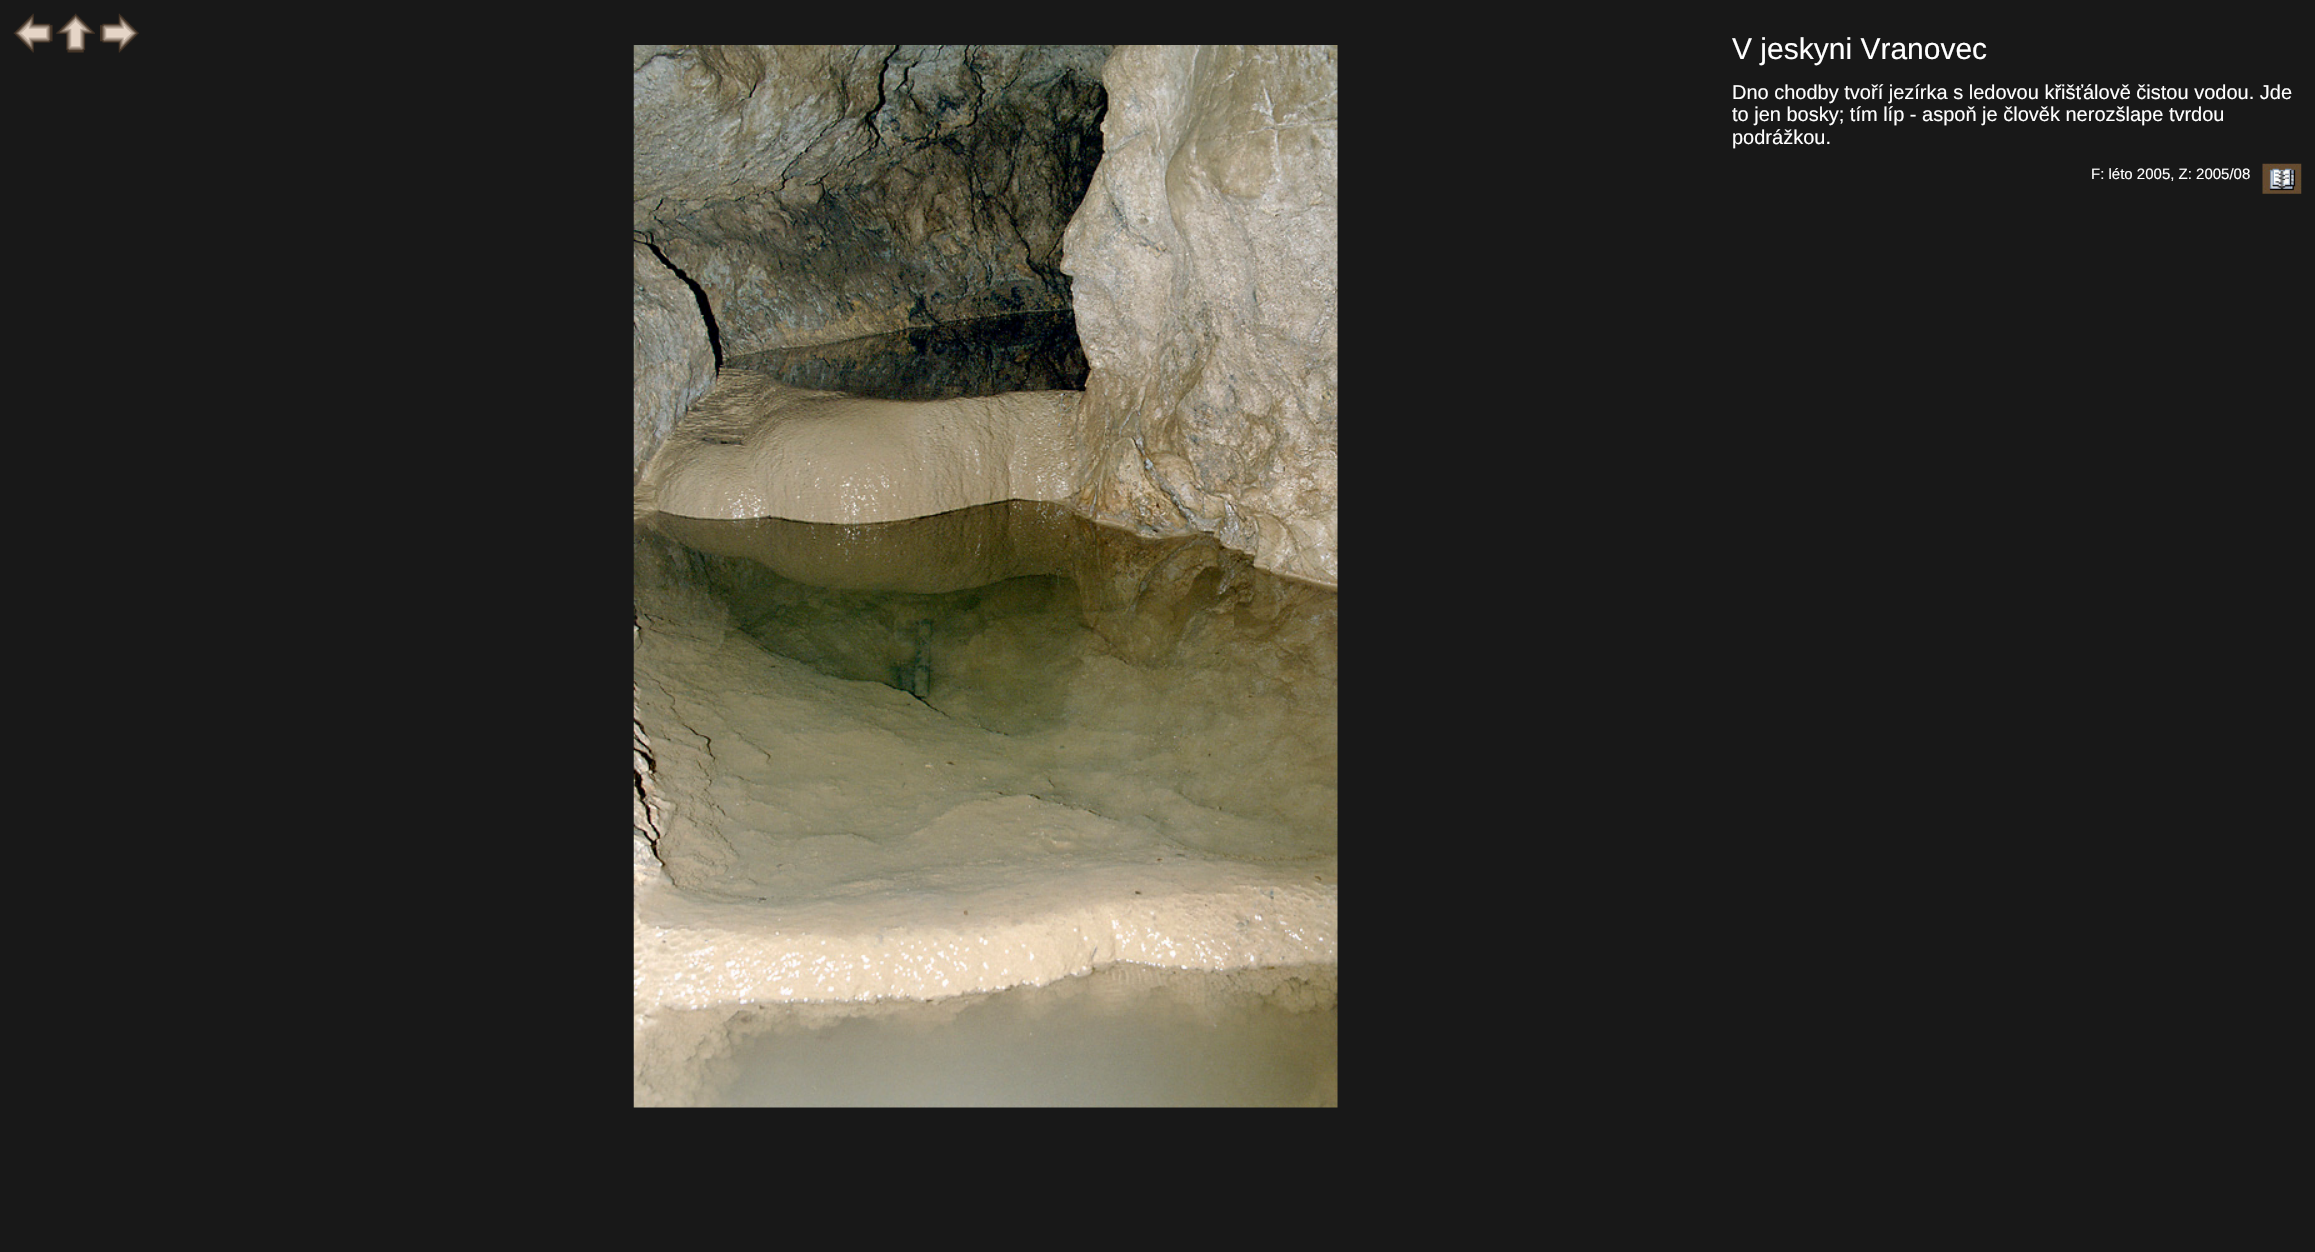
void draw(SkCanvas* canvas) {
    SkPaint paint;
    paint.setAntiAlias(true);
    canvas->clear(0xFF181818);
    canvas->drawImageRect(SkImages::DeferredFromEncodedData(SkData::MakeFromFileName("img1.png")), SkRect::MakeXYWH(13, 13, 40, 40), SkSamplingOptions());
    canvas->drawImageRect(SkImages::DeferredFromEncodedData(SkData::MakeFromFileName("img2.png")), SkRect::MakeXYWH(56, 13, 39, 40), SkSamplingOptions());
    canvas->drawImageRect(SkImages::DeferredFromEncodedData(SkData::MakeFromFileName("img3.png")), SkRect::MakeXYWH(100, 13, 39, 40), SkSamplingOptions());
    canvas->drawImageRect(SkImages::DeferredFromEncodedData(SkData::MakeFromFileName("img4.png")), SkRect::MakeXYWH(633, 45, 705, 1063), SkSamplingOptions());
    SkFont font1(fontMgr->matchFamilyStyle("Liberation Sans", SkFontStyle::Normal()), 30);
    font1.setSubpixel(true);
    paint.setColor(0xFFFFFFFF);
    canvas->drawString("V jeskyni Vranovec", 1732, 59, font1, paint);
    SkFont font2(fontMgr->matchFamilyStyle("Liberation Sans", SkFontStyle::Normal()), 20);
    font2.setSubpixel(true);
    canvas->drawString("Dno chodby tvoří jezírka s ledovou křišťálově čistou vodou. Jde", 1732, 99, font2, paint);
    canvas->drawString("to jen bosky; tím líp - aspoň je člověk nerozšlape tvrdou", 1732, 121, font2, paint);
    canvas->drawString("podrážkou.", 1732, 144, font2, paint);
    SkFont font3(fontMgr->matchFamilyStyle("Liberation Sans", SkFontStyle::Normal()), 15);
    font3.setSubpixel(true);
    canvas->drawString("F: léto 2005, Z: 2005/08", 2091, 179, font3, paint);
    canvas->drawImageRect(SkImages::DeferredFromEncodedData(SkData::MakeFromFileName("img5.png")), SkRect::MakeXYWH(2262, 163, 40, 31), SkSamplingOptions());
}
